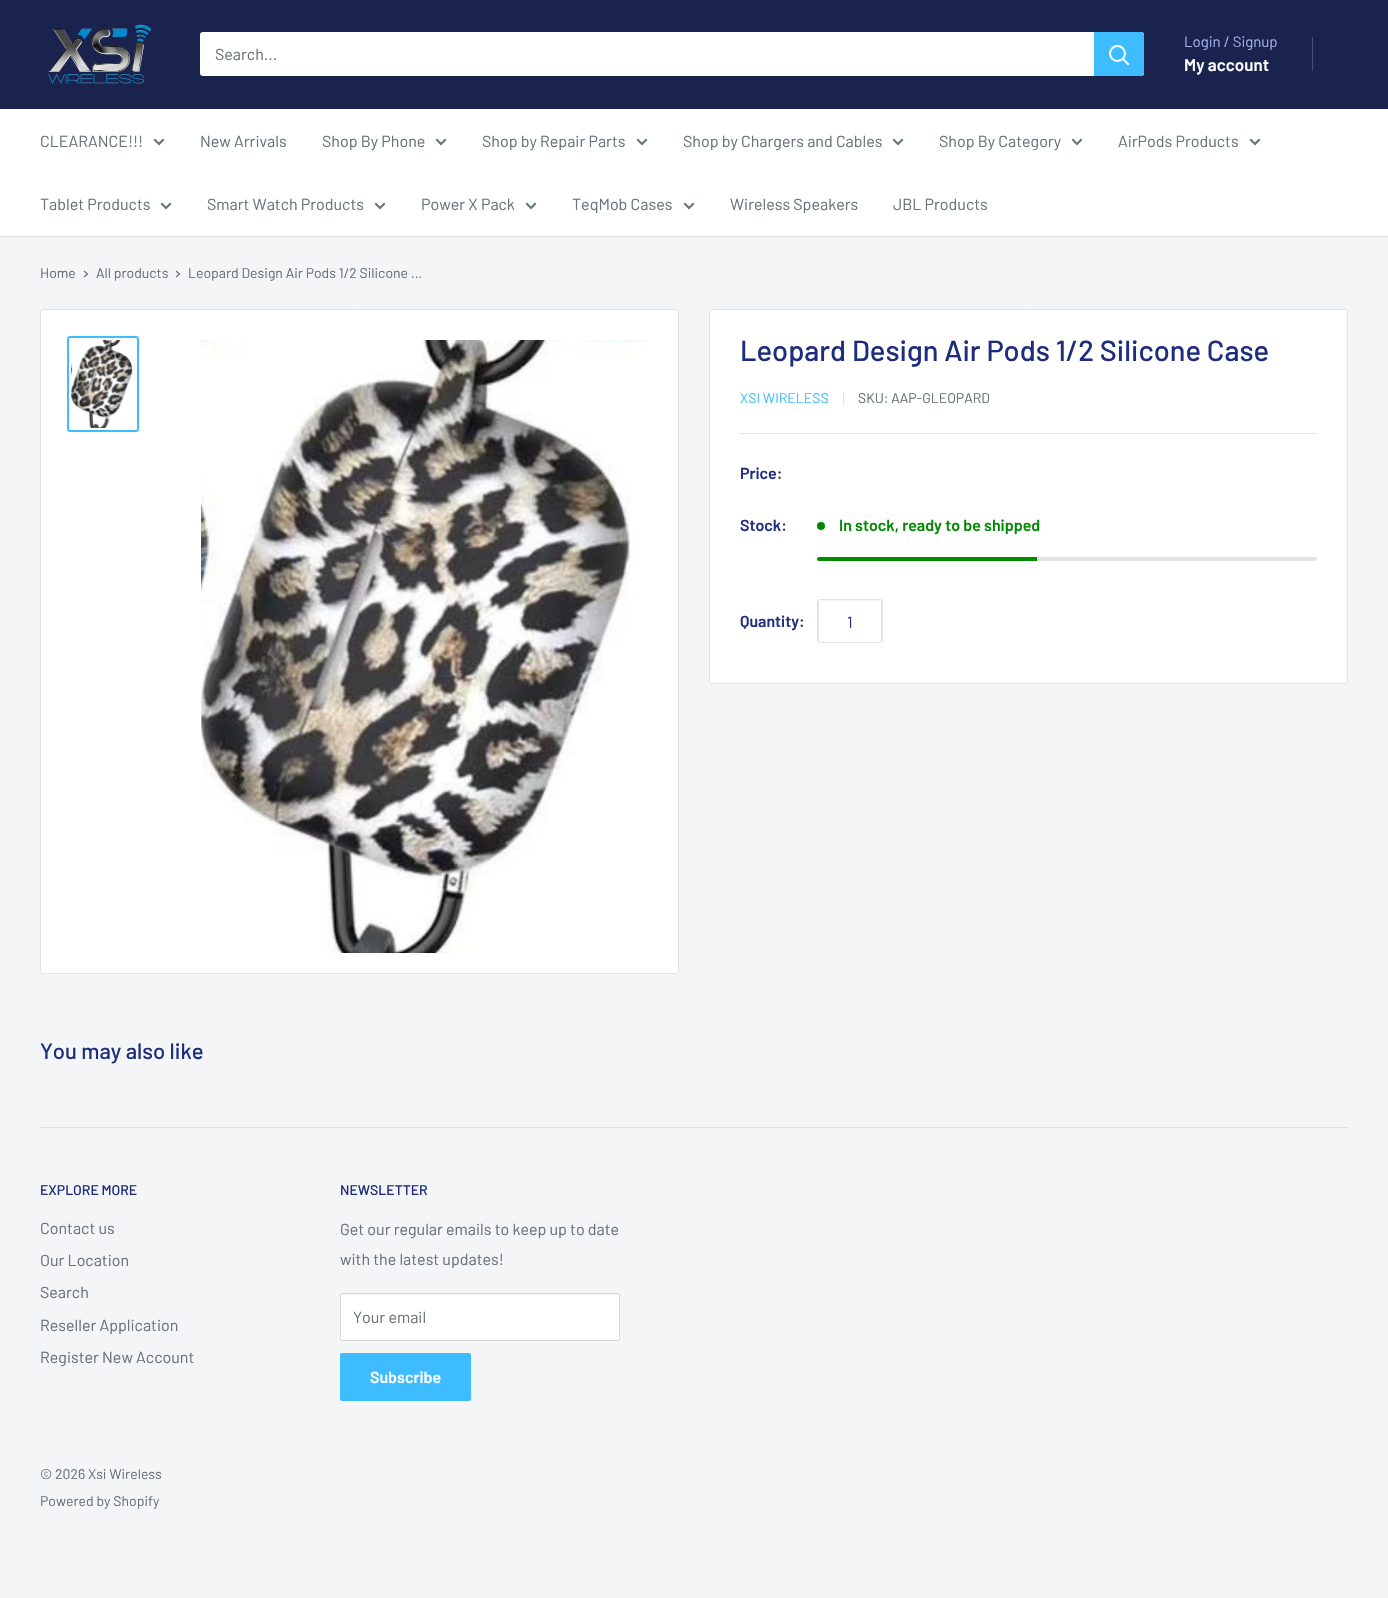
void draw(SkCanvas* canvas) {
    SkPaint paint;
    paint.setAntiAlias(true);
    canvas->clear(0xFFF3F5F6);
    paint.setColor(0xFF1A224E);
    canvas->drawRect(SkRect::MakeXYWH(0, 0, 1388, 109), paint);
    canvas->drawImageRect(SkImages::DeferredFromEncodedData(SkData::MakeFromFileName("img1.png")), SkRect::MakeXYWH(48, 24, 104, 60), SkSamplingOptions());
    paint.setColor(0xFFFFFFFF);
    canvas->drawRoundRect(SkRect::MakeXYWH(200, 32, 944, 44), 3, 3, paint);
    SkFont font1(fontMgr->matchFamilyStyle("Barlow", SkFontStyle::Normal()), 16);
    font1.setSubpixel(true);
    paint.setColor(0xFF677279);
    canvas->drawString("Search...", 215, 60, font1, paint);
    paint.setColor(0xFF3DBDFF);
    canvas->drawPath(SkPathBuilder().moveTo(1094, 32).lineTo(1141, 32).cubicTo(1142.5f, 32, 1144, 33.5f, 1144, 35).lineTo(1144, 73).cubicTo(1144, 74.5f, 1142.5f, 76, 1141, 76).lineTo(1094, 76).close().detach(), paint);
    paint.setStyle(SkPaint::kStroke_Style);
    paint.setStrokeWidth(2);
    paint.setStrokeCap(SkPaint::kSquare_Cap);
    paint.setColor(0xFFFFFFFF);
    canvas->drawPath(SkPathBuilder().moveTo(1128, 64).lineTo(1123, 59).detach(), paint);
    paint.setStrokeCap(SkPaint::kButt_Cap);
    canvas->drawCircle(1117.5f, 53.5f, 7.5f, paint);
    SkFont font2(fontMgr->matchFamilyStyle("Barlow", SkFontStyle::Normal()), 15);
    font2.setSubpixel(true);
    paint.setStyle(SkPaint::kFill_Style);
    paint.setColor(0xFFA3AFEF);
    canvas->drawString("Login / Signup", 1184, 47, font2, paint);
    paint.setColor(0xFF434C7E);
    canvas->drawRect(SkRect::MakeXYWH(1312, 37, 1, 34), paint);
    SkFont font3(fontMgr->matchFamilyStyle("Barlow", SkFontStyle(600, SkFontStyle::kNormal_Width, SkFontStyle::kUpright_Slant)), 17);
    font3.setSubpixel(true);
    paint.setColor(0xFFFFFFFF);
    canvas->drawString("My account", 1184, 71, font3, paint);
    canvas->drawRect(SkRect::MakeXYWH(0, 109, 1388, 127), paint);
    paint.setColor(0xFFE1E3E4);
    canvas->drawRect(SkRect::MakeXYWH(0, 236, 1388, 1), paint);
    paint.setColor(0xFF677279);
    canvas->drawString("CLEARANCE!!!", 40, 147, font1, paint);
    paint.setStyle(SkPaint::kStroke_Style);
    paint.setStrokeCap(SkPaint::kSquare_Cap);
    canvas->drawPath(SkPathBuilder().moveTo(163, 140).lineTo(159, 144).lineTo(155, 140).detach(), paint);
    paint.setStyle(SkPaint::kFill_Style);
    canvas->drawString("New Arrivals", 200, 147, font1, paint);
    canvas->drawString("Shop By Phone", 322, 147, font1, paint);
    paint.setStyle(SkPaint::kStroke_Style);
    canvas->drawPath(SkPathBuilder().moveTo(445, 140).lineTo(441, 144).lineTo(437, 140).detach(), paint);
    paint.setStyle(SkPaint::kFill_Style);
    canvas->drawString("Shop by Repair Parts", 482, 147, font1, paint);
    paint.setStyle(SkPaint::kStroke_Style);
    canvas->drawPath(SkPathBuilder().moveTo(646, 140).lineTo(642, 144).lineTo(638, 140).detach(), paint);
    paint.setStyle(SkPaint::kFill_Style);
    canvas->drawString("Shop by Chargers and Cables", 683, 147, font1, paint);
    paint.setStyle(SkPaint::kStroke_Style);
    canvas->drawPath(SkPathBuilder().moveTo(902, 140).lineTo(898, 144).lineTo(894, 140).detach(), paint);
    paint.setStyle(SkPaint::kFill_Style);
    canvas->drawString("Shop By Category", 939, 147, font1, paint);
    paint.setStyle(SkPaint::kStroke_Style);
    canvas->drawPath(SkPathBuilder().moveTo(1081, 140).lineTo(1077, 144).lineTo(1073, 140).detach(), paint);
    paint.setStyle(SkPaint::kFill_Style);
    canvas->drawString("AirPods Products", 1118, 147, font1, paint);
    paint.setStyle(SkPaint::kStroke_Style);
    canvas->drawPath(SkPathBuilder().moveTo(1259, 140).lineTo(1255, 144).lineTo(1251, 140).detach(), paint);
    paint.setStyle(SkPaint::kFill_Style);
    canvas->drawString("Tablet Products", 40, 210, font1, paint);
    paint.setStyle(SkPaint::kStroke_Style);
    canvas->drawPath(SkPathBuilder().moveTo(170, 204).lineTo(166, 208).lineTo(162, 204).detach(), paint);
    paint.setStyle(SkPaint::kFill_Style);
    canvas->drawString("Smart Watch Products", 207, 210, font1, paint);
    paint.setStyle(SkPaint::kStroke_Style);
    canvas->drawPath(SkPathBuilder().moveTo(384, 204).lineTo(380, 208).lineTo(376, 204).detach(), paint);
    paint.setStyle(SkPaint::kFill_Style);
    canvas->drawString("Power X Pack", 421, 210, font1, paint);
    paint.setStyle(SkPaint::kStroke_Style);
    canvas->drawPath(SkPathBuilder().moveTo(535, 204).lineTo(531, 208).lineTo(527, 204).detach(), paint);
    paint.setStyle(SkPaint::kFill_Style);
    canvas->drawString("TeqMob Cases", 572, 210, font1, paint);
    paint.setStyle(SkPaint::kStroke_Style);
    canvas->drawPath(SkPathBuilder().moveTo(693, 204).lineTo(689, 208).lineTo(685, 204).detach(), paint);
    paint.setStyle(SkPaint::kFill_Style);
    canvas->drawString("Wireless Speakers", 730, 210, font1, paint);
    canvas->drawString("JBL Products", 893, 210, font1, paint);
    SkFont font4(fontMgr->matchFamilyStyle("Barlow", SkFontStyle::Normal()), 14);
    font4.setSubpixel(true);
    canvas->drawString("Home", 40, 278, font4, paint);
    paint.setStyle(SkPaint::kStroke_Style);
    paint.setStrokeWidth(1.3f);
    canvas->drawPath(SkPathBuilder().moveTo(84.5f, 271.5f).lineTo(87.5f, 274).lineTo(84.5f, 276.5f).detach(), paint);
    paint.setStyle(SkPaint::kFill_Style);
    canvas->drawString("All products", 96, 278, font4, paint);
    paint.setStyle(SkPaint::kStroke_Style);
    canvas->drawPath(SkPathBuilder().moveTo(176.5f, 271.5f).lineTo(179.5f, 274).lineTo(176.5f, 276.5f).detach(), paint);
    paint.setStyle(SkPaint::kFill_Style);
    canvas->drawString("Leopard Design Air Pods 1/2 Silicone ...", 188, 278, font4, paint);
    paint.setColor(0xFFFFFFFF);
    canvas->drawRoundRect(SkRect::MakeXYWH(40.5f, 309.5f, 638, 664), 2.5f, 2.5f, paint);
    paint.setStyle(SkPaint::kStroke_Style);
    paint.setStrokeWidth(1);
    paint.setStrokeCap(SkPaint::kButt_Cap);
    paint.setColor(0xFFE1E3E4);
    canvas->drawRoundRect(SkRect::MakeXYWH(40.5f, 309.5f, 638, 664), 2.5f, 2.5f, paint);
    paint.setStrokeWidth(2);
    paint.setColor(0xFF3DBDFF);
    canvas->drawRoundRect(SkRect::MakeXYWH(68, 337, 70, 94), 2, 2, paint);
    canvas->drawImageRect(SkImages::DeferredFromEncodedData(SkData::MakeFromFileName("img2.png")), SkRect::MakeXYWH(71, 340, 63, 88), SkSamplingOptions());
    canvas->drawImageRect(SkImages::DeferredFromEncodedData(SkData::MakeFromFileName("img3.png")), SkRect::MakeXYWH(201, 340, 447, 613), SkSamplingOptions());
    paint.setStyle(SkPaint::kFill_Style);
    paint.setColor(0xFFFFFFFF);
    canvas->drawRoundRect(SkRect::MakeXYWH(709.5f, 309.5f, 638, 374), 2.5f, 2.5f, paint);
    paint.setStyle(SkPaint::kStroke_Style);
    paint.setStrokeWidth(1);
    paint.setColor(0xFFE1E3E4);
    canvas->drawRoundRect(SkRect::MakeXYWH(709.5f, 309.5f, 638, 374), 2.5f, 2.5f, paint);
    SkFont font5(fontMgr->matchFamilyStyle("Barlow", SkFontStyle(500, SkFontStyle::kNormal_Width, SkFontStyle::kUpright_Slant)), 29);
    font5.setSubpixel(true);
    paint.setStyle(SkPaint::kFill_Style);
    paint.setColor(0xFF1E2D7D);
    canvas->drawString("Leopard Design Air Pods 1/2 Silicone Case", 740, 361, font5, paint);
    paint.setColor(0xFF3DBDFF);
    canvas->drawString("XSI WIRELESS", 740, 403, font4, paint);
    paint.setColor(0xFFE1E3E4);
    canvas->drawRect(SkRect::MakeXYWH(843, 392, 1, 13), paint);
    paint.setColor(0xFF677279);
    canvas->drawString("SKU: AAP-GLEOPARD", 858, 403, font4, paint);
    paint.setColor(0xFFE1E3E4);
    canvas->drawRect(SkRect::MakeXYWH(740, 433, 577, 1), paint);
    SkFont font6(fontMgr->matchFamilyStyle("Barlow", SkFontStyle(600, SkFontStyle::kNormal_Width, SkFontStyle::kUpright_Slant)), 16);
    font6.setSubpixel(true);
    paint.setColor(0xFF1E2D7D);
    canvas->drawString("Price:", 740, 479, font6, paint);
    canvas->drawString("Stock:", 740, 531, font6, paint);
    paint.setColor(0xFF008A00);
    canvas->drawCircle(821, 526, 4, paint);
    canvas->drawString("In stock, ready to be shipped", 839, 531, font6, paint);
    paint.setColor(0xFFE1E3E4);
    canvas->drawRoundRect(SkRect::MakeXYWH(817, 557, 500, 4), 2, 2, paint);
    paint.setColor(0xFF008A00);
    canvas->drawPath(SkPathBuilder().moveTo(819, 557).lineTo(1037, 557).lineTo(1037, 561).lineTo(819, 561).cubicTo(818, 561, 817, 560, 817, 559).cubicTo(817, 558, 818, 557, 819, 557).close().detach(), paint);
    paint.setColor(0xFF1E2D7D);
    canvas->drawString("Quantity:", 740, 627, font6, paint);
    paint.setStyle(SkPaint::kStroke_Style);
    paint.setColor(0xFFE1E3E4);
    canvas->drawRoundRect(SkRect::MakeXYWH(817.5f, 599.5f, 65, 43), 2.5f, 2.5f, paint);
    paint.setStyle(SkPaint::kFill_Style);
    paint.setColor(0x66E1E3E4);
    canvas->drawRect(SkRect::MakeXYWH(819, 600, 62, 1), paint);
    paint.setColor(0xFFE1E3E4);
    canvas->drawRect(SkRect::MakeXYWH(881, 600, 1, 42), paint);
    canvas->drawRect(SkRect::MakeXYWH(818, 600, 1, 42), paint);
    paint.setColor(0xFF1E2D7D);
    canvas->drawString("1", 847, 628, font1, paint);
    SkFont font7(fontMgr->matchFamilyStyle("Barlow", SkFontStyle(500, SkFontStyle::kNormal_Width, SkFontStyle::kUpright_Slant)), 22);
    font7.setSubpixel(true);
    canvas->drawString("You may also like", 40, 1059, font7, paint);
    paint.setColor(0xFFE1E3E4);
    canvas->drawRect(SkRect::MakeXYWH(40, 1127, 1308, 1), paint);
    SkFont font8(fontMgr->matchFamilyStyle("Barlow", SkFontStyle(500, SkFontStyle::kNormal_Width, SkFontStyle::kUpright_Slant)), 14);
    font8.setSubpixel(true);
    paint.setColor(0xFF1E2D7D);
    canvas->drawString("EXPLORE MORE", 40, 1195, font8, paint);
    paint.setColor(0xFF677279);
    canvas->drawString("Contact us", 40, 1234, font1, paint);
    canvas->drawString("Our Location", 40, 1266, font1, paint);
    canvas->drawString("Search", 40, 1298, font1, paint);
    canvas->drawString("Reseller Application", 40, 1331, font1, paint);
    canvas->drawString("Register New Account", 40, 1363, font1, paint);
    paint.setColor(0xFF1E2D7D);
    canvas->drawString("NEWSLETTER", 340, 1195, font8, paint);
    paint.setColor(0xFF677279);
    canvas->drawString("Get our regular emails to keep up to date", 340, 1235, font1, paint);
    canvas->drawString("with the latest updates!", 340, 1265, font1, paint);
    paint.setColor(0xFFFFFFFF);
    canvas->drawRoundRect(SkRect::MakeXYWH(340, 1293, 280, 48), 2, 2, paint);
    paint.setColor(0xFFF8F8F8);
    canvas->drawPath(SkPathBuilder().moveTo(342, 1295).lineTo(618, 1295).cubicTo(619, 1295, 619, 1295, 619, 1296).cubicTo(619, 1295, 619, 1294, 618, 1294).lineTo(342, 1294).lineTo(341, 1294).lineTo(341, 1296).cubicTo(341, 1295, 341, 1295, 342, 1295).close().detach(), paint);
    paint.setStyle(SkPaint::kStroke_Style);
    paint.setColor(0xFFD4D6D8);
    canvas->drawRoundRect(SkRect::MakeXYWH(340.5f, 1293.5f, 279, 47), 1.5f, 1.5f, paint);
    paint.setStyle(SkPaint::kFill_Style);
    paint.setColor(0xFF677279);
    canvas->drawString("Your email", 353, 1323, font1, paint);
    paint.setColor(0xFF3DBDFF);
    canvas->drawRoundRect(SkRect::MakeXYWH(340, 1353, 131, 48), 2, 2, paint);
    paint.setColor(0xFFFFFFFF);
    canvas->drawString("Subscribe", 370, 1383, font6, paint);
    paint.setColor(0xFF677279);
    canvas->drawString("© 2026 Xsi Wireless", 40, 1479, font4, paint);
    canvas->drawString("Powered by Shopify", 40, 1506, font4, paint);
}
